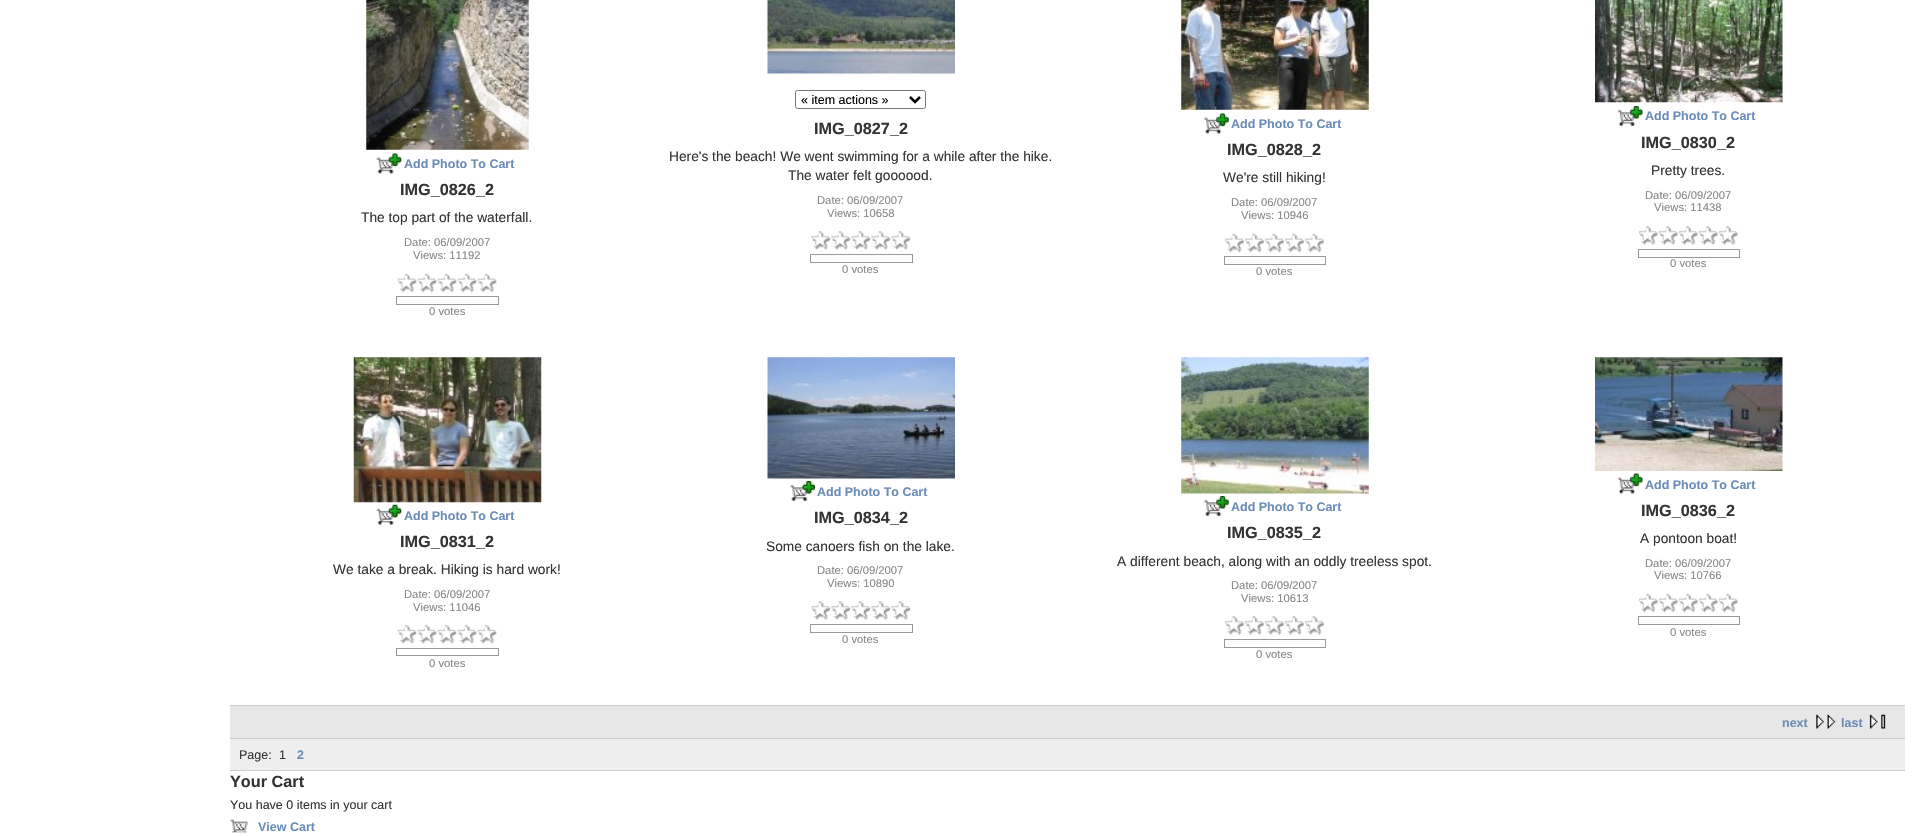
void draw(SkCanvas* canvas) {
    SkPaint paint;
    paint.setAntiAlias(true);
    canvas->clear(0xFFFFFFFF);
    paint.setColor(0xFFCCCCCC);
    canvas->drawRect(SkRect::MakeXYWH(230, 705, 1675, 1), paint);
    canvas->drawImageRect(SkImages::DeferredFromEncodedData(SkData::MakeFromFileName("img1.png")), SkRect::MakeXYWH(366, 0, 163, 150), SkSamplingOptions());
    canvas->drawImageRect(SkImages::DeferredFromEncodedData(SkData::MakeFromFileName("img2.png")), SkRect::MakeXYWH(376, 153, 26, 21), SkSamplingOptions());
    SkFont font1(fontMgr->matchFamilyStyle("Liberation Sans", SkFontStyle::Bold()), 12.5f);
    font1.setSubpixel(true);
    paint.setColor(0xFF6B8CB7);
    canvas->drawString("Add Photo To Cart", 404, 168, font1, paint);
    SkFont font2(fontMgr->matchFamilyStyle("Liberation Sans", SkFontStyle::Bold()), 16.25f);
    font2.setSubpixel(true);
    paint.setColor(0xFF333333);
    canvas->drawString("IMG_0826_2", 400, 195, font2, paint);
    SkFont font3(fontMgr->matchFamilyStyle("Liberation Sans", SkFontStyle::Normal()), 13.75f);
    font3.setSubpixel(true);
    canvas->drawString("The top part of the waterfall.", 361, 222, font3, paint);
    SkFont font4(fontMgr->matchFamilyStyle("Liberation Sans", SkFontStyle::Normal()), 11.25f);
    font4.setSubpixel(true);
    paint.setColor(0xFF888888);
    canvas->drawString("Date: 06/09/2007", 404, 246, font4, paint);
    canvas->drawString("Views: 11192", 413, 259, font4, paint);
    canvas->drawImageRect(SkImages::DeferredFromEncodedData(SkData::MakeFromFileName("img3.png")), SkRect::MakeXYWH(397, 273, 20, 20), SkSamplingOptions());
    canvas->drawImageRect(SkImages::DeferredFromEncodedData(SkData::MakeFromFileName("img4.png")), SkRect::MakeXYWH(417, 273, 20, 20), SkSamplingOptions());
    canvas->drawImageRect(SkImages::DeferredFromEncodedData(SkData::MakeFromFileName("img4.png")), SkRect::MakeXYWH(437, 273, 20, 20), SkSamplingOptions());
    canvas->drawImageRect(SkImages::DeferredFromEncodedData(SkData::MakeFromFileName("img4.png")), SkRect::MakeXYWH(457, 273, 20, 20), SkSamplingOptions());
    canvas->drawImageRect(SkImages::DeferredFromEncodedData(SkData::MakeFromFileName("img4.png")), SkRect::MakeXYWH(477, 273, 20, 20), SkSamplingOptions());
    paint.setStyle(SkPaint::kStroke_Style);
    paint.setStrokeWidth(1);
    paint.setColor(0xFF999999);
    canvas->drawRect(SkRect::MakeXYWH(396.5f, 296.5f, 102, 8), paint);
    paint.setStyle(SkPaint::kFill_Style);
    paint.setColor(0xFF888888);
    canvas->drawString("0 votes", 429, 315, font4, paint);
    canvas->drawImageRect(SkImages::DeferredFromEncodedData(SkData::MakeFromFileName("img5.png")), SkRect::MakeXYWH(767, 0, 188, 74), SkSamplingOptions());
    paint.setStyle(SkPaint::kStroke_Style);
    paint.setColor(0xFF767676);
    canvas->drawRoundRect(SkRect::MakeXYWH(795.5f, 90.5f, 130, 18), 2, 2, paint);
    paint.setStrokeWidth(2.5f);
    paint.setColor(0xFF000000);
    canvas->drawPath(SkPathBuilder().moveTo(910, 97).lineTo(915, 102).lineTo(920, 97).detach(), paint);
    SkFont font5(fontMgr->matchFamilyStyle("Liberation Sans", SkFontStyle::Normal()), 12.5f);
    font5.setSubpixel(true);
    paint.setStyle(SkPaint::kFill_Style);
    canvas->drawString("« item actions »", 801, 104, font5, paint);
    paint.setColor(0xFF333333);
    canvas->drawString("IMG_0827_2", 814, 134, font2, paint);
    canvas->drawString("Here's the beach! We went swimming for a while after the hike.", 669, 161, font3, paint);
    canvas->drawString("The water felt goooood.", 788, 180, font3, paint);
    paint.setColor(0xFF888888);
    canvas->drawString("Date: 06/09/2007", 817, 204, font4, paint);
    canvas->drawString("Views: 10658", 827, 217, font4, paint);
    canvas->drawImageRect(SkImages::DeferredFromEncodedData(SkData::MakeFromFileName("img6.png")), SkRect::MakeXYWH(811, 231, 20, 19), SkSamplingOptions());
    canvas->drawImageRect(SkImages::DeferredFromEncodedData(SkData::MakeFromFileName("img6.png")), SkRect::MakeXYWH(831, 231, 20, 19), SkSamplingOptions());
    canvas->drawImageRect(SkImages::DeferredFromEncodedData(SkData::MakeFromFileName("img6.png")), SkRect::MakeXYWH(851, 231, 20, 19), SkSamplingOptions());
    canvas->drawImageRect(SkImages::DeferredFromEncodedData(SkData::MakeFromFileName("img6.png")), SkRect::MakeXYWH(871, 231, 20, 19), SkSamplingOptions());
    canvas->drawImageRect(SkImages::DeferredFromEncodedData(SkData::MakeFromFileName("img6.png")), SkRect::MakeXYWH(891, 231, 20, 19), SkSamplingOptions());
    paint.setStyle(SkPaint::kStroke_Style);
    paint.setStrokeWidth(1);
    paint.setColor(0xFF999999);
    canvas->drawRect(SkRect::MakeXYWH(810.5f, 254.5f, 102, 8), paint);
    paint.setStyle(SkPaint::kFill_Style);
    paint.setColor(0xFF888888);
    canvas->drawString("0 votes", 842, 273, font4, paint);
    canvas->drawImageRect(SkImages::DeferredFromEncodedData(SkData::MakeFromFileName("img7.png")), SkRect::MakeXYWH(1181, 0, 188, 110), SkSamplingOptions());
    canvas->drawImageRect(SkImages::DeferredFromEncodedData(SkData::MakeFromFileName("img8.png")), SkRect::MakeXYWH(1203, 113, 26, 21), SkSamplingOptions());
    paint.setColor(0xFF6B8CB7);
    canvas->drawString("Add Photo To Cart", 1231, 128, font1, paint);
    paint.setColor(0xFF333333);
    canvas->drawString("IMG_0828_2", 1227, 155, font2, paint);
    canvas->drawString("We're still hiking!", 1223, 182, font3, paint);
    paint.setColor(0xFF888888);
    canvas->drawString("Date: 06/09/2007", 1231, 206, font4, paint);
    canvas->drawString("Views: 10946", 1241, 219, font4, paint);
    canvas->drawImageRect(SkImages::DeferredFromEncodedData(SkData::MakeFromFileName("img9.png")), SkRect::MakeXYWH(1225, 233, 19, 20), SkSamplingOptions());
    canvas->drawImageRect(SkImages::DeferredFromEncodedData(SkData::MakeFromFileName("img9.png")), SkRect::MakeXYWH(1245, 233, 19, 20), SkSamplingOptions());
    canvas->drawImageRect(SkImages::DeferredFromEncodedData(SkData::MakeFromFileName("img9.png")), SkRect::MakeXYWH(1265, 233, 19, 20), SkSamplingOptions());
    canvas->drawImageRect(SkImages::DeferredFromEncodedData(SkData::MakeFromFileName("img9.png")), SkRect::MakeXYWH(1285, 233, 19, 20), SkSamplingOptions());
    canvas->drawImageRect(SkImages::DeferredFromEncodedData(SkData::MakeFromFileName("img10.png")), SkRect::MakeXYWH(1305, 233, 19, 20), SkSamplingOptions());
    paint.setStyle(SkPaint::kStroke_Style);
    paint.setColor(0xFF999999);
    canvas->drawRect(SkRect::MakeXYWH(1224.5f, 256.5f, 101, 8), paint);
    paint.setStyle(SkPaint::kFill_Style);
    paint.setColor(0xFF888888);
    canvas->drawString("0 votes", 1256, 275, font4, paint);
    canvas->drawImageRect(SkImages::DeferredFromEncodedData(SkData::MakeFromFileName("img11.png")), SkRect::MakeXYWH(1595, 0, 188, 103), SkSamplingOptions());
    canvas->drawImageRect(SkImages::DeferredFromEncodedData(SkData::MakeFromFileName("img12.png")), SkRect::MakeXYWH(1617, 106, 26, 20), SkSamplingOptions());
    paint.setColor(0xFF6B8CB7);
    canvas->drawString("Add Photo To Cart", 1645, 120, font1, paint);
    paint.setColor(0xFF333333);
    canvas->drawString("IMG_0830_2", 1641, 148, font2, paint);
    canvas->drawString("Pretty trees.", 1651, 175, font3, paint);
    paint.setColor(0xFF888888);
    canvas->drawString("Date: 06/09/2007", 1645, 199, font4, paint);
    canvas->drawString("Views: 11438", 1654, 211, font4, paint);
    canvas->drawImageRect(SkImages::DeferredFromEncodedData(SkData::MakeFromFileName("img13.png")), SkRect::MakeXYWH(1639, 226, 19, 19), SkSamplingOptions());
    canvas->drawImageRect(SkImages::DeferredFromEncodedData(SkData::MakeFromFileName("img13.png")), SkRect::MakeXYWH(1659, 226, 19, 19), SkSamplingOptions());
    canvas->drawImageRect(SkImages::DeferredFromEncodedData(SkData::MakeFromFileName("img13.png")), SkRect::MakeXYWH(1679, 226, 19, 19), SkSamplingOptions());
    canvas->drawImageRect(SkImages::DeferredFromEncodedData(SkData::MakeFromFileName("img14.png")), SkRect::MakeXYWH(1699, 226, 19, 19), SkSamplingOptions());
    canvas->drawImageRect(SkImages::DeferredFromEncodedData(SkData::MakeFromFileName("img14.png")), SkRect::MakeXYWH(1719, 226, 19, 19), SkSamplingOptions());
    paint.setStyle(SkPaint::kStroke_Style);
    paint.setColor(0xFF999999);
    canvas->drawRect(SkRect::MakeXYWH(1638.5f, 249.5f, 101, 8), paint);
    paint.setStyle(SkPaint::kFill_Style);
    paint.setColor(0xFF888888);
    canvas->drawString("0 votes", 1670, 267, font4, paint);
    canvas->drawImageRect(SkImages::DeferredFromEncodedData(SkData::MakeFromFileName("img15.png")), SkRect::MakeXYWH(353, 357, 189, 146), SkSamplingOptions());
    canvas->drawImageRect(SkImages::DeferredFromEncodedData(SkData::MakeFromFileName("img16.png")), SkRect::MakeXYWH(376, 504, 26, 21), SkSamplingOptions());
    paint.setColor(0xFF6B8CB7);
    canvas->drawString("Add Photo To Cart", 404, 520, font1, paint);
    paint.setColor(0xFF333333);
    canvas->drawString("IMG_0831_2", 400, 547, font2, paint);
    canvas->drawString("We take a break. Hiking is hard work!", 333, 574, font3, paint);
    paint.setColor(0xFF888888);
    canvas->drawString("Date: 06/09/2007", 404, 598, font4, paint);
    canvas->drawString("Views: 11046", 413, 611, font4, paint);
    canvas->drawImageRect(SkImages::DeferredFromEncodedData(SkData::MakeFromFileName("img17.png")), SkRect::MakeXYWH(397, 625, 20, 19), SkSamplingOptions());
    canvas->drawImageRect(SkImages::DeferredFromEncodedData(SkData::MakeFromFileName("img18.png")), SkRect::MakeXYWH(417, 625, 20, 19), SkSamplingOptions());
    canvas->drawImageRect(SkImages::DeferredFromEncodedData(SkData::MakeFromFileName("img18.png")), SkRect::MakeXYWH(437, 625, 20, 19), SkSamplingOptions());
    canvas->drawImageRect(SkImages::DeferredFromEncodedData(SkData::MakeFromFileName("img18.png")), SkRect::MakeXYWH(457, 625, 20, 19), SkSamplingOptions());
    canvas->drawImageRect(SkImages::DeferredFromEncodedData(SkData::MakeFromFileName("img18.png")), SkRect::MakeXYWH(477, 625, 20, 19), SkSamplingOptions());
    paint.setStyle(SkPaint::kStroke_Style);
    paint.setColor(0xFF999999);
    canvas->drawRect(SkRect::MakeXYWH(396.5f, 648.5f, 102, 7), paint);
    paint.setStyle(SkPaint::kFill_Style);
    paint.setColor(0xFF888888);
    canvas->drawString("0 votes", 429, 667, font4, paint);
    canvas->drawImageRect(SkImages::DeferredFromEncodedData(SkData::MakeFromFileName("img19.png")), SkRect::MakeXYWH(767, 357, 188, 122), SkSamplingOptions());
    canvas->drawImageRect(SkImages::DeferredFromEncodedData(SkData::MakeFromFileName("img20.png")), SkRect::MakeXYWH(790, 481, 25, 20), SkSamplingOptions());
    paint.setColor(0xFF6B8CB7);
    canvas->drawString("Add Photo To Cart", 817, 496, font1, paint);
    paint.setColor(0xFF333333);
    canvas->drawString("IMG_0834_2", 814, 523, font2, paint);
    canvas->drawString("Some canoers fish on the lake.", 766, 551, font3, paint);
    paint.setColor(0xFF888888);
    canvas->drawString("Date: 06/09/2007", 817, 574, font4, paint);
    canvas->drawString("Views: 10890", 827, 587, font4, paint);
    canvas->drawImageRect(SkImages::DeferredFromEncodedData(SkData::MakeFromFileName("img6.png")), SkRect::MakeXYWH(811, 601, 20, 19), SkSamplingOptions());
    canvas->drawImageRect(SkImages::DeferredFromEncodedData(SkData::MakeFromFileName("img6.png")), SkRect::MakeXYWH(831, 601, 20, 19), SkSamplingOptions());
    canvas->drawImageRect(SkImages::DeferredFromEncodedData(SkData::MakeFromFileName("img6.png")), SkRect::MakeXYWH(851, 601, 20, 19), SkSamplingOptions());
    canvas->drawImageRect(SkImages::DeferredFromEncodedData(SkData::MakeFromFileName("img6.png")), SkRect::MakeXYWH(871, 601, 20, 19), SkSamplingOptions());
    canvas->drawImageRect(SkImages::DeferredFromEncodedData(SkData::MakeFromFileName("img6.png")), SkRect::MakeXYWH(891, 601, 20, 19), SkSamplingOptions());
    paint.setStyle(SkPaint::kStroke_Style);
    paint.setColor(0xFF999999);
    canvas->drawRect(SkRect::MakeXYWH(810.5f, 624.5f, 102, 8), paint);
    paint.setStyle(SkPaint::kFill_Style);
    paint.setColor(0xFF888888);
    canvas->drawString("0 votes", 842, 643, font4, paint);
    canvas->drawImageRect(SkImages::DeferredFromEncodedData(SkData::MakeFromFileName("img21.png")), SkRect::MakeXYWH(1181, 357, 188, 137), SkSamplingOptions());
    canvas->drawImageRect(SkImages::DeferredFromEncodedData(SkData::MakeFromFileName("img22.png")), SkRect::MakeXYWH(1203, 496, 26, 20), SkSamplingOptions());
    paint.setColor(0xFF6B8CB7);
    canvas->drawString("Add Photo To Cart", 1231, 511, font1, paint);
    paint.setColor(0xFF333333);
    canvas->drawString("IMG_0835_2", 1227, 538, font2, paint);
    canvas->drawString("A different beach, along with an oddly treeless spot.", 1117, 566, font3, paint);
    paint.setColor(0xFF888888);
    canvas->drawString("Date: 06/09/2007", 1231, 589, font4, paint);
    canvas->drawString("Views: 10613", 1241, 602, font4, paint);
    canvas->drawImageRect(SkImages::DeferredFromEncodedData(SkData::MakeFromFileName("img23.png")), SkRect::MakeXYWH(1225, 616, 19, 19), SkSamplingOptions());
    canvas->drawImageRect(SkImages::DeferredFromEncodedData(SkData::MakeFromFileName("img23.png")), SkRect::MakeXYWH(1245, 616, 19, 19), SkSamplingOptions());
    canvas->drawImageRect(SkImages::DeferredFromEncodedData(SkData::MakeFromFileName("img23.png")), SkRect::MakeXYWH(1265, 616, 19, 19), SkSamplingOptions());
    canvas->drawImageRect(SkImages::DeferredFromEncodedData(SkData::MakeFromFileName("img23.png")), SkRect::MakeXYWH(1285, 616, 19, 19), SkSamplingOptions());
    canvas->drawImageRect(SkImages::DeferredFromEncodedData(SkData::MakeFromFileName("img24.png")), SkRect::MakeXYWH(1305, 616, 19, 19), SkSamplingOptions());
    paint.setStyle(SkPaint::kStroke_Style);
    paint.setColor(0xFF999999);
    canvas->drawRect(SkRect::MakeXYWH(1224.5f, 639.5f, 101, 8), paint);
    paint.setStyle(SkPaint::kFill_Style);
    paint.setColor(0xFF888888);
    canvas->drawString("0 votes", 1256, 658, font4, paint);
    canvas->drawImageRect(SkImages::DeferredFromEncodedData(SkData::MakeFromFileName("img25.png")), SkRect::MakeXYWH(1595, 357, 188, 114), SkSamplingOptions());
    canvas->drawImageRect(SkImages::DeferredFromEncodedData(SkData::MakeFromFileName("img26.png")), SkRect::MakeXYWH(1617, 473, 26, 21), SkSamplingOptions());
    paint.setColor(0xFF6B8CB7);
    canvas->drawString("Add Photo To Cart", 1645, 489, font1, paint);
    paint.setColor(0xFF333333);
    canvas->drawString("IMG_0836_2", 1641, 516, font2, paint);
    canvas->drawString("A pontoon boat!", 1640, 543, font3, paint);
    paint.setColor(0xFF888888);
    canvas->drawString("Date: 06/09/2007", 1645, 567, font4, paint);
    canvas->drawString("Views: 10766", 1654, 579, font4, paint);
    canvas->drawImageRect(SkImages::DeferredFromEncodedData(SkData::MakeFromFileName("img27.png")), SkRect::MakeXYWH(1639, 593, 19, 20), SkSamplingOptions());
    canvas->drawImageRect(SkImages::DeferredFromEncodedData(SkData::MakeFromFileName("img27.png")), SkRect::MakeXYWH(1659, 593, 19, 20), SkSamplingOptions());
    canvas->drawImageRect(SkImages::DeferredFromEncodedData(SkData::MakeFromFileName("img27.png")), SkRect::MakeXYWH(1679, 593, 19, 20), SkSamplingOptions());
    canvas->drawImageRect(SkImages::DeferredFromEncodedData(SkData::MakeFromFileName("img28.png")), SkRect::MakeXYWH(1699, 593, 19, 20), SkSamplingOptions());
    canvas->drawImageRect(SkImages::DeferredFromEncodedData(SkData::MakeFromFileName("img28.png")), SkRect::MakeXYWH(1719, 593, 19, 20), SkSamplingOptions());
    paint.setStyle(SkPaint::kStroke_Style);
    paint.setColor(0xFF999999);
    canvas->drawRect(SkRect::MakeXYWH(1638.5f, 616.5f, 101, 8), paint);
    paint.setStyle(SkPaint::kFill_Style);
    paint.setColor(0xFF888888);
    canvas->drawString("0 votes", 1670, 636, font4, paint);
    paint.setColor(0xFFE7E7E7);
    canvas->drawRect(SkRect::MakeXYWH(230, 706, 1675, 32), paint);
    paint.setColor(0xFFCCCCCC);
    canvas->drawRect(SkRect::MakeXYWH(230, 738, 1675, 1), paint);
    paint.setColor(0xFF6B8CB7);
    canvas->drawString("next", 1782, 727, font1, paint);
    canvas->drawImageRect(SkImages::DeferredFromEncodedData(SkData::MakeFromFileName("img29.png")), SkRect::MakeXYWH(1816, 714, 20, 15), SkSamplingOptions());
    canvas->drawString("last", 1841, 727, font1, paint);
    canvas->drawImageRect(SkImages::DeferredFromEncodedData(SkData::MakeFromFileName("img30.png")), SkRect::MakeXYWH(1869, 714, 17, 15), SkSamplingOptions());
    paint.setColor(0xFFEEEEEE);
    canvas->drawRect(SkRect::MakeXYWH(230, 739, 1675, 31), paint);
    paint.setColor(0xFFCCCCCC);
    canvas->drawRect(SkRect::MakeXYWH(230, 770, 1675, 1), paint);
    paint.setColor(0xFF333333);
    canvas->drawString("Page:", 239, 759, font5, paint);
    canvas->drawString("1", 279, 759, font5, paint);
    paint.setColor(0xFF6B8CB7);
    canvas->drawString("2", 297, 759, font1, paint);
    paint.setColor(0xFF333333);
    canvas->drawString("Your Cart", 230, 787, font2, paint);
    canvas->drawString("You have 0 items in your cart", 230, 809, font5, paint);
    canvas->drawImageRect(SkImages::DeferredFromEncodedData(SkData::MakeFromFileName("img31.png")), SkRect::MakeXYWH(230, 819, 18, 14), SkSamplingOptions());
    paint.setColor(0xFF6B8CB7);
    canvas->drawString("View Cart", 258, 831, font1, paint);
}
